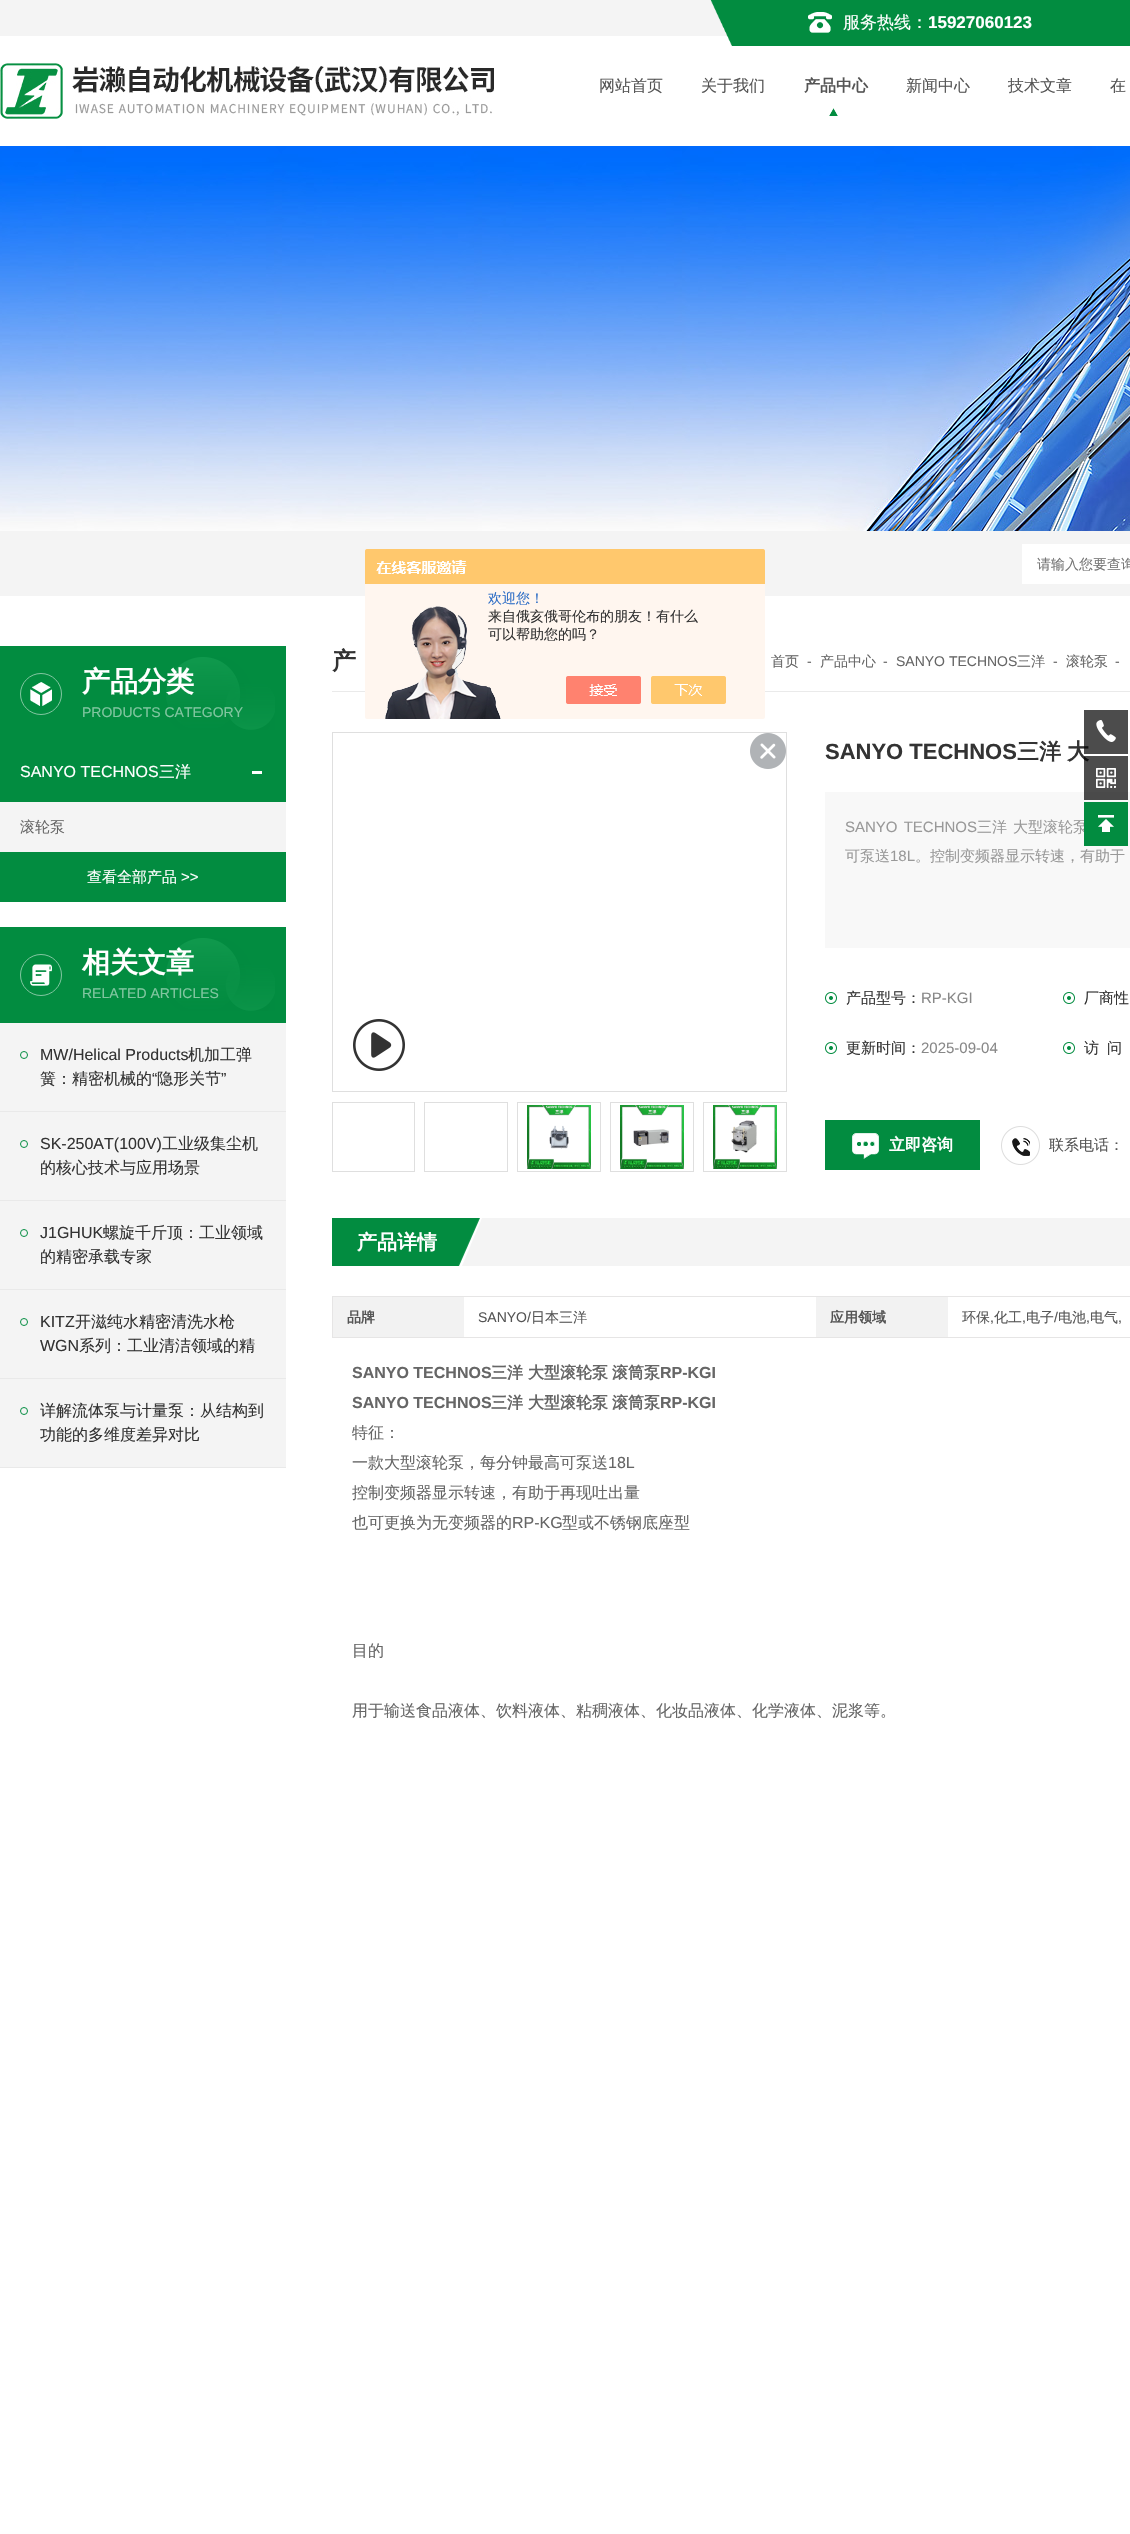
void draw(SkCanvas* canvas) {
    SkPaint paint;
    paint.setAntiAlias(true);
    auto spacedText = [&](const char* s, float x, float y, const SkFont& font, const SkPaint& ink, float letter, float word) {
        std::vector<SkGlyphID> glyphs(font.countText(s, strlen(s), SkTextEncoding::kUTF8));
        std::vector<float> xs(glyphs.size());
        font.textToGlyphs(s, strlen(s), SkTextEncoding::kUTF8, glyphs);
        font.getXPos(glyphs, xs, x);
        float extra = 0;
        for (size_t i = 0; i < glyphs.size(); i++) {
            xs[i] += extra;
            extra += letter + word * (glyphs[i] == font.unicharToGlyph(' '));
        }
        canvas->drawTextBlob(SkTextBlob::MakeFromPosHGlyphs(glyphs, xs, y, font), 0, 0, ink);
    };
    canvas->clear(0xFFFFFFFF);
    canvas->drawImageRect(SkImages::DeferredFromEncodedData(SkData::MakeFromFileName("img1.png")), SkRect::MakeXYWH(0, 0, 1130, 46), SkSamplingOptions());
    canvas->drawImageRect(SkImages::DeferredFromEncodedData(SkData::MakeFromFileName("img2.png")), SkRect::MakeXYWH(808, 12, 24, 21), SkSamplingOptions());
    SkFont font1(fontMgr->matchFamilyStyle("WenQuanYi Zen Hei", SkFontStyle(500, SkFontStyle::kNormal_Width, SkFontStyle::kUpright_Slant)), 17);
    font1.setSubpixel(true);
    paint.setColor(0xFFFFFFFF);
    canvas->drawString("服务热线：", 843, 28, font1, paint);
    SkFont font2(fontMgr->matchFamilyStyle("Liberation Sans", SkFontStyle::Bold()), 17);
    font2.setSubpixel(true);
    canvas->drawString("15927060123", 928, 28, font2, paint);
    canvas->drawImageRect(SkImages::DeferredFromEncodedData(SkData::MakeFromFileName("img3.png")), SkRect::MakeXYWH(0, 63, 494, 56), SkSamplingOptions());
    SkFont font3(fontMgr->matchFamilyStyle("WenQuanYi Zen Hei", SkFontStyle(500, SkFontStyle::kNormal_Width, SkFontStyle::kUpright_Slant)), 16);
    font3.setSubpixel(true);
    paint.setColor(0xFF555555);
    canvas->drawString("网站首页", 599, 91, font3, paint);
    canvas->drawString("关于我们", 701, 91, font3, paint);
    SkFont font4(fontMgr->matchFamilyStyle("WenQuanYi Zen Hei", SkFontStyle::Bold()), 16);
    font4.setSubpixel(true);
    canvas->drawString("产品中心", 804, 91, font4, paint);
    canvas->drawImageRect(SkImages::DeferredFromEncodedData(SkData::MakeFromFileName("img4.png")), SkRect::MakeXYWH(829, 108, 9, 8), SkSamplingOptions());
    canvas->drawString("新闻中心", 906, 91, font3, paint);
    canvas->drawString("技术文章", 1008, 91, font3, paint);
    canvas->drawString("在", 1110, 91, font3, paint);
    canvas->drawImageRect(SkImages::DeferredFromEncodedData(SkData::MakeFromFileName("img5.png")), SkRect::MakeXYWH(0, 146, 1130, 385), SkSamplingOptions());
    paint.setColor(0xFFF4F4F4);
    canvas->drawRect(SkRect::MakeXYWH(0, 531, 1130, 65), paint);
    paint.setColor(0xFFFFFFFF);
    canvas->drawRect(SkRect::MakeXYWH(1022, 544, 108, 40), paint);
    SkFont font5(fontMgr->matchFamilyStyle("WenQuanYi Zen Hei", SkFontStyle(500, SkFontStyle::kNormal_Width, SkFontStyle::kUpright_Slant)), 14);
    font5.setSubpixel(true);
    paint.setColor(0xFF757575);
    canvas->drawString("请输入您要查询", 1037, 569, font5, paint);
    paint.setColor(0xFFEAEAEA);
    canvas->drawRect(SkRect::MakeXYWH(332, 691, 798, 1), paint);
    canvas->drawImageRect(SkImages::DeferredFromEncodedData(SkData::MakeFromFileName("img6.png")), SkRect::MakeXYWH(365, 549, 400, 170), SkSamplingOptions());
    paint.setColor(0xFF2E6EC6);
    canvas->drawString("欢迎您！", 488, 603, font5, paint);
    paint.setColor(0xFF333333);
    canvas->drawString("来自俄亥俄哥伦布的朋友！有什么", 488, 621, font5, paint);
    canvas->drawString("可以帮助您的吗？", 488, 639, font5, paint);
    paint.setColor(0xFF028C40);
    canvas->drawRect(SkRect::MakeXYWH(0, 646, 286, 156), paint);
    canvas->drawImageRect(SkImages::DeferredFromEncodedData(SkData::MakeFromFileName("img7.png")), SkRect::MakeXYWH(166, 657, 109, 73), SkSamplingOptions());
    paint.setStyle(SkPaint::kStroke_Style);
    paint.setStrokeWidth(1);
    paint.setColor(0xFF81C6A0);
    canvas->drawCircle(41, 694, 20.5f, paint);
    canvas->drawImageRect(SkImages::DeferredFromEncodedData(SkData::MakeFromFileName("img8.png")), SkRect::MakeXYWH(30, 682, 22, 24), SkSamplingOptions());
    SkFont font6(fontMgr->matchFamilyStyle("WenQuanYi Zen Hei", SkFontStyle::Bold()), 28);
    font6.setSubpixel(true);
    paint.setStyle(SkPaint::kFill_Style);
    paint.setColor(0xFFFFFFFF);
    canvas->drawString("产品分类", 82, 691, font6, paint);
    SkFont font7(fontMgr->matchFamilyStyle("Liberation Sans", SkFontStyle::Normal()), 14);
    font7.setSubpixel(true);
    paint.setColor(0xFF81C6A0);
    canvas->drawString("PRODUCTS CATEGORY", 82, 717, font7, paint);
    paint.setColor(0xFFF4F4F4);
    canvas->drawRect(SkRect::MakeXYWH(0, 802, 286, 50), paint);
    SkFont font8(fontMgr->matchFamilyStyle("Liberation Sans", SkFontStyle::Normal()), 16);
    font8.setSubpixel(true);
    paint.setColor(0xFFFFFFFF);
    canvas->drawString("SANYO TECHNOS", 20, 777, font8, paint);
    canvas->drawString("三洋", 159, 777, font3, paint);
    paint.setColor(0xFFFFFEFE);
    canvas->drawRect(SkRect::MakeXYWH(252, 771, 10, 3), paint);
    SkFont font9(fontMgr->matchFamilyStyle("WenQuanYi Zen Hei", SkFontStyle(500, SkFontStyle::kNormal_Width, SkFontStyle::kUpright_Slant)), 15);
    font9.setSubpixel(true);
    paint.setColor(0xFF666666);
    canvas->drawString("滚轮泵", 20, 832, font9, paint);
    paint.setColor(0xFF028C40);
    canvas->drawRect(SkRect::MakeXYWH(0, 852, 286, 50), paint);
    paint.setColor(0xFFFFFFFF);
    canvas->drawString("查看全部产品", 87, 882, font9, paint);
    SkFont font10(fontMgr->matchFamilyStyle("Liberation Sans", SkFontStyle::Normal()), 15);
    font10.setSubpixel(true);
    canvas->drawString(">>", 181, 882, font10, paint);
    paint.setColor(0xFF028C40);
    canvas->drawRect(SkRect::MakeXYWH(0, 927, 286, 96), paint);
    canvas->drawImageRect(SkImages::DeferredFromEncodedData(SkData::MakeFromFileName("img7.png")), SkRect::MakeXYWH(166, 938, 109, 73), SkSamplingOptions());
    paint.setStyle(SkPaint::kStroke_Style);
    paint.setColor(0xFF81C6A0);
    canvas->drawCircle(41, 975, 20.5f, paint);
    canvas->drawImageRect(SkImages::DeferredFromEncodedData(SkData::MakeFromFileName("img9.png")), SkRect::MakeXYWH(30, 964, 22, 22), SkSamplingOptions());
    paint.setStyle(SkPaint::kFill_Style);
    paint.setColor(0xFFFFFFFF);
    canvas->drawString("相关文章", 82, 972, font6, paint);
    paint.setColor(0xFF81C6A0);
    canvas->drawString("RELATED ARTICLES", 82, 998, font7, paint);
    paint.setColor(0xFFF4F4F4);
    canvas->drawRect(SkRect::MakeXYWH(0, 1023, 286, 444), paint);
    paint.setColor(0xFFE9E9E9);
    canvas->drawRect(SkRect::MakeXYWH(0, 1111, 286, 1), paint);
    paint.setStyle(SkPaint::kStroke_Style);
    paint.setColor(0xFF028C40);
    canvas->drawCircle(24, 1055, 3.5f, paint);
    paint.setStyle(SkPaint::kFill_Style);
    paint.setColor(0xFF333333);
    canvas->drawString("MW/Helical Products", 40, 1060, font8, paint);
    canvas->drawString("机加工弹", 188, 1060, font3, paint);
    canvas->drawString("簧：精密机械的", 40, 1084, font3, paint);
    canvas->drawString("“", 152, 1084, font8, paint);
    canvas->drawString("隐形关节", 157, 1084, font3, paint);
    canvas->drawString("”", 221, 1084, font8, paint);
    paint.setColor(0xFFE9E9E9);
    canvas->drawRect(SkRect::MakeXYWH(0, 1200, 286, 1), paint);
    paint.setStyle(SkPaint::kStroke_Style);
    paint.setColor(0xFF028C40);
    canvas->drawCircle(24, 1144, 3.5f, paint);
    paint.setStyle(SkPaint::kFill_Style);
    paint.setColor(0xFF333333);
    canvas->drawString("SK-250AT(100V)", 40, 1149, font8, paint);
    canvas->drawString("工业级集尘机", 162, 1149, font3, paint);
    canvas->drawString("的核心技术与应用场景", 40, 1173, font3, paint);
    paint.setColor(0xFFE9E9E9);
    canvas->drawRect(SkRect::MakeXYWH(0, 1289, 286, 1), paint);
    paint.setStyle(SkPaint::kStroke_Style);
    paint.setColor(0xFF028C40);
    canvas->drawCircle(24, 1233, 3.5f, paint);
    paint.setStyle(SkPaint::kFill_Style);
    paint.setColor(0xFF333333);
    canvas->drawString("J1GHUK", 40, 1238, font8, paint);
    canvas->drawString("螺旋千斤顶：工业领域", 103, 1238, font3, paint);
    canvas->drawString("的精密承载专家", 40, 1262, font3, paint);
    paint.setColor(0xFFE9E9E9);
    canvas->drawRect(SkRect::MakeXYWH(0, 1378, 286, 1), paint);
    paint.setStyle(SkPaint::kStroke_Style);
    paint.setColor(0xFF028C40);
    canvas->drawCircle(24, 1322, 3.5f, paint);
    paint.setStyle(SkPaint::kFill_Style);
    paint.setColor(0xFF333333);
    canvas->drawString("KITZ", 40, 1327, font8, paint);
    canvas->drawString("开滋纯水精密清洗水枪", 75, 1327, font3, paint);
    canvas->drawString("WGN", 40, 1351, font8, paint);
    canvas->drawString("系列：工业清洁领域的精", 79, 1351, font3, paint);
    paint.setColor(0xFFE9E9E9);
    canvas->drawRect(SkRect::MakeXYWH(0, 1467, 286, 1), paint);
    paint.setStyle(SkPaint::kStroke_Style);
    paint.setColor(0xFF028C40);
    canvas->drawCircle(24, 1411, 3.5f, paint);
    paint.setStyle(SkPaint::kFill_Style);
    paint.setColor(0xFF333333);
    canvas->drawString("详解流体泵与计量泵：从结构到", 40, 1416, font3, paint);
    canvas->drawString("功能的多维度差异对比", 40, 1440, font3, paint);
    SkFont font11(fontMgr->matchFamilyStyle("WenQuanYi Zen Hei", SkFontStyle::Bold()), 24);
    font11.setSubpixel(true);
    canvas->drawString("产", 332, 669, font11, paint);
    paint.setColor(0xFF666666);
    canvas->drawString("首页", 771, 666, font5, paint);
    canvas->drawString("-", 807, 666, font7, paint);
    canvas->drawString("产品中心", 820, 666, font5, paint);
    canvas->drawString("-", 883, 666, font7, paint);
    canvas->drawString("SANYO TECHNOS", 896, 666, font7, paint);
    canvas->drawString("三洋", 1017, 666, font5, paint);
    canvas->drawString("-", 1053, 666, font7, paint);
    canvas->drawString("滚轮泵", 1066, 666, font5, paint);
    canvas->drawString("-", 1115, 666, font7, paint);
    paint.setStyle(SkPaint::kStroke_Style);
    paint.setColor(0xFFDFDFDF);
    canvas->drawRect(SkRect::MakeXYWH(332.5f, 732.5f, 454, 359), paint);
    canvas->drawImageRect(SkImages::DeferredFromEncodedData(SkData::MakeFromFileName("img10.png")), SkRect::MakeXYWH(750, 733, 36, 36), SkSamplingOptions());
    canvas->drawImageRect(SkImages::DeferredFromEncodedData(SkData::MakeFromFileName("img11.png")), SkRect::MakeXYWH(353, 1019, 52, 52), SkSamplingOptions());
    canvas->drawRect(SkRect::MakeXYWH(332.5f, 1102.5f, 82, 69), paint);
    canvas->drawRect(SkRect::MakeXYWH(424.5f, 1102.5f, 83, 69), paint);
    canvas->drawRect(SkRect::MakeXYWH(517.5f, 1102.5f, 83, 69), paint);
    canvas->drawImageRect(SkImages::DeferredFromEncodedData(SkData::MakeFromFileName("img12.png")), SkRect::MakeXYWH(527, 1105, 64, 64), SkSamplingOptions());
    canvas->drawRect(SkRect::MakeXYWH(610.5f, 1102.5f, 83, 69), paint);
    canvas->drawImageRect(SkImages::DeferredFromEncodedData(SkData::MakeFromFileName("img13.png")), SkRect::MakeXYWH(620, 1105, 64, 64), SkSamplingOptions());
    canvas->drawRect(SkRect::MakeXYWH(703.5f, 1102.5f, 83, 69), paint);
    canvas->drawImageRect(SkImages::DeferredFromEncodedData(SkData::MakeFromFileName("img14.png")), SkRect::MakeXYWH(713, 1105, 64, 64), SkSamplingOptions());
    SkFont font12(fontMgr->matchFamilyStyle("Liberation Sans", SkFontStyle::Bold()), 22);
    font12.setSubpixel(true);
    paint.setStyle(SkPaint::kFill_Style);
    paint.setColor(0xFF333333);
    canvas->drawString("SANYO TECHNOS", 825, 759, font12, paint);
    SkFont font13(fontMgr->matchFamilyStyle("WenQuanYi Zen Hei", SkFontStyle::Bold()), 22);
    font13.setSubpixel(true);
    canvas->drawString("三洋", 1017, 759, font13, paint);
    canvas->drawString("大", 1067, 759, font13, paint);
    paint.setColor(0xFFF8F8F8);
    canvas->drawRect(SkRect::MakeXYWH(825, 792, 305, 156), paint);
    paint.setColor(0xFF999999);
    spacedText("SANYO TECHNOS", 845, 832, font10, paint, 0, 2);
    canvas->drawString("三洋", 977, 832, font9, paint);
    canvas->drawString("大型滚轮泵", 1013, 832, font9, paint);
    canvas->drawString("可泵送", 845, 861, font9, paint);
    canvas->drawString("18L", 890, 861, font10, paint);
    canvas->drawString("。控制变频器显示转速，有助于", 915, 861, font9, paint);
    canvas->drawImageRect(SkImages::DeferredFromEncodedData(SkData::MakeFromFileName("img15.png")), SkRect::MakeXYWH(825, 992, 12, 12), SkSamplingOptions());
    paint.setColor(0xFF333333);
    canvas->drawString("产品型号：", 846, 1003, font9, paint);
    paint.setColor(0xFF888888);
    canvas->drawString("RP-KGI", 921, 1003, font10, paint);
    canvas->drawImageRect(SkImages::DeferredFromEncodedData(SkData::MakeFromFileName("img15.png")), SkRect::MakeXYWH(1063, 992, 12, 12), SkSamplingOptions());
    paint.setColor(0xFF333333);
    canvas->drawString("厂商性", 1084, 1003, font9, paint);
    canvas->drawImageRect(SkImages::DeferredFromEncodedData(SkData::MakeFromFileName("img15.png")), SkRect::MakeXYWH(825, 1042, 12, 12), SkSamplingOptions());
    canvas->drawString("更新时间：", 846, 1053, font9, paint);
    paint.setColor(0xFF888888);
    canvas->drawString("2025-09-04", 921, 1053, font10, paint);
    canvas->drawImageRect(SkImages::DeferredFromEncodedData(SkData::MakeFromFileName("img15.png")), SkRect::MakeXYWH(1063, 1042, 12, 12), SkSamplingOptions());
    paint.setColor(0xFF333333);
    canvas->drawString("访", 1084, 1053, font9, paint);
    canvas->drawString("问", 1107, 1053, font9, paint);
    paint.setColor(0xFF028C40);
    canvas->drawRect(SkRect::MakeXYWH(825, 1120, 155, 50), paint);
    canvas->drawImageRect(SkImages::DeferredFromEncodedData(SkData::MakeFromFileName("img16.png")), SkRect::MakeXYWH(852, 1133, 27, 26), SkSamplingOptions());
    paint.setColor(0xFFFFFFFF);
    canvas->drawString("立即咨询", 889, 1150, font4, paint);
    canvas->drawImageRect(SkImages::DeferredFromEncodedData(SkData::MakeFromFileName("img17.png")), SkRect::MakeXYWH(1001, 1126, 39, 39), SkSamplingOptions());
    paint.setColor(0xFF555555);
    canvas->drawString("联系电话：", 1049, 1150, font9, paint);
    canvas->drawImageRect(SkImages::DeferredFromEncodedData(SkData::MakeFromFileName("img18.png")), SkRect::MakeXYWH(332, 1218, 798, 48), SkSamplingOptions());
    SkFont font14(fontMgr->matchFamilyStyle("WenQuanYi Zen Hei", SkFontStyle::Bold()), 20);
    font14.setSubpixel(true);
    paint.setColor(0xFFFFFFFF);
    canvas->drawString("产品详情", 357, 1249, font14, paint);
    paint.setColor(0xFFE6E5E5);
    canvas->drawRect(SkRect::MakeXYWH(332, 1296, 798, 1), paint);
    canvas->drawRect(SkRect::MakeXYWH(332, 1296, 1, 42), paint);
    paint.setColor(0xFFF2F2F2);
    canvas->drawRect(SkRect::MakeXYWH(333, 1297, 131, 40), paint);
    SkFont font15(fontMgr->matchFamilyStyle("WenQuanYi Zen Hei", SkFontStyle::Bold()), 14);
    font15.setSubpixel(true);
    paint.setColor(0xFF555555);
    canvas->drawString("品牌", 347, 1322, font15, paint);
    canvas->drawString("SANYO/", 478, 1322, font7, paint);
    canvas->drawString("日本三洋", 531, 1322, font5, paint);
    paint.setColor(0xFFF2F2F2);
    canvas->drawRect(SkRect::MakeXYWH(816, 1297, 132, 40), paint);
    paint.setColor(0xFF555555);
    canvas->drawString("应用领域", 830, 1322, font15, paint);
    paint.setColor(0xFFE6E5E5);
    canvas->drawRect(SkRect::MakeXYWH(332, 1337, 798, 1), paint);
    paint.setColor(0xFF555555);
    canvas->drawString("环保", 962, 1322, font5, paint);
    canvas->drawString(",", 990, 1322, font7, paint);
    canvas->drawString("化工", 994, 1322, font5, paint);
    canvas->drawString(",", 1022, 1322, font7, paint);
    canvas->drawString("电子", 1026, 1322, font5, paint);
    canvas->drawString("/", 1054, 1322, font7, paint);
    canvas->drawString("电池", 1058, 1322, font5, paint);
    canvas->drawString(",", 1086, 1322, font7, paint);
    canvas->drawString("电气", 1090, 1322, font5, paint);
    canvas->drawString(",", 1118, 1322, font7, paint);
    SkFont font16(fontMgr->matchFamilyStyle("Liberation Sans", SkFontStyle::Bold()), 16);
    font16.setSubpixel(true);
    paint.setColor(0xFF666666);
    canvas->drawString("SANYO TECHNOS", 352, 1378, font16, paint);
    canvas->drawString("三洋", 491, 1378, font4, paint);
    canvas->drawString("大型滚轮泵", 528, 1378, font4, paint);
    canvas->drawString("滚筒泵", 612, 1378, font4, paint);
    canvas->drawString("RP-KGI", 660, 1378, font16, paint);
    canvas->drawString("SANYO TECHNOS", 352, 1408, font16, paint);
    canvas->drawString("三洋", 491, 1408, font4, paint);
    canvas->drawString("大型滚轮泵", 528, 1408, font4, paint);
    canvas->drawString("滚筒泵", 612, 1408, font4, paint);
    canvas->drawString("RP-KGI", 660, 1408, font16, paint);
    canvas->save();
    canvas->clipRect(SkRect::MakeXYWH(352, 1418, 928, 30));
    canvas->drawString("特征：", 352, 1438, font3, paint);
    canvas->restore();
    canvas->drawString("一款大型滚轮泵，每分钟最高可泵送", 352, 1468, font3, paint);
    canvas->drawString("18L", 608, 1468, font8, paint);
    canvas->drawString("控制变频器显示转速，有助于再现吐出量", 352, 1498, font3, paint);
    canvas->drawString("也可更换为无变频器的", 352, 1528, font3, paint);
    canvas->drawString("RP-KG", 512, 1528, font8, paint);
    canvas->drawString("型或不锈钢底座型", 562, 1528, font3, paint);
    canvas->drawString("目的", 352, 1656, font3, paint);
    canvas->drawString("用于输送食品液体、饮料液体、粘稠液体、化妆品液体、化学液体、泥浆等。", 352, 1716, font3, paint);
    paint.setColor(0xB3000000);
    canvas->drawRect(SkRect::MakeXYWH(1084, 710, 44, 44), paint);
    canvas->drawImageRect(SkImages::DeferredFromEncodedData(SkData::MakeFromFileName("img19.png")), SkRect::MakeXYWH(1096, 720, 20, 22), SkSamplingOptions());
    canvas->drawRect(SkRect::MakeXYWH(1084, 756, 44, 44), paint);
    canvas->drawImageRect(SkImages::DeferredFromEncodedData(SkData::MakeFromFileName("img20.png")), SkRect::MakeXYWH(1096, 768, 20, 20), SkSamplingOptions());
    paint.setColor(0xFF028C40);
    canvas->drawRect(SkRect::MakeXYWH(1084, 802, 44, 44), paint);
    canvas->drawImageRect(SkImages::DeferredFromEncodedData(SkData::MakeFromFileName("img21.png")), SkRect::MakeXYWH(1098, 815, 16, 17), SkSamplingOptions());
}
